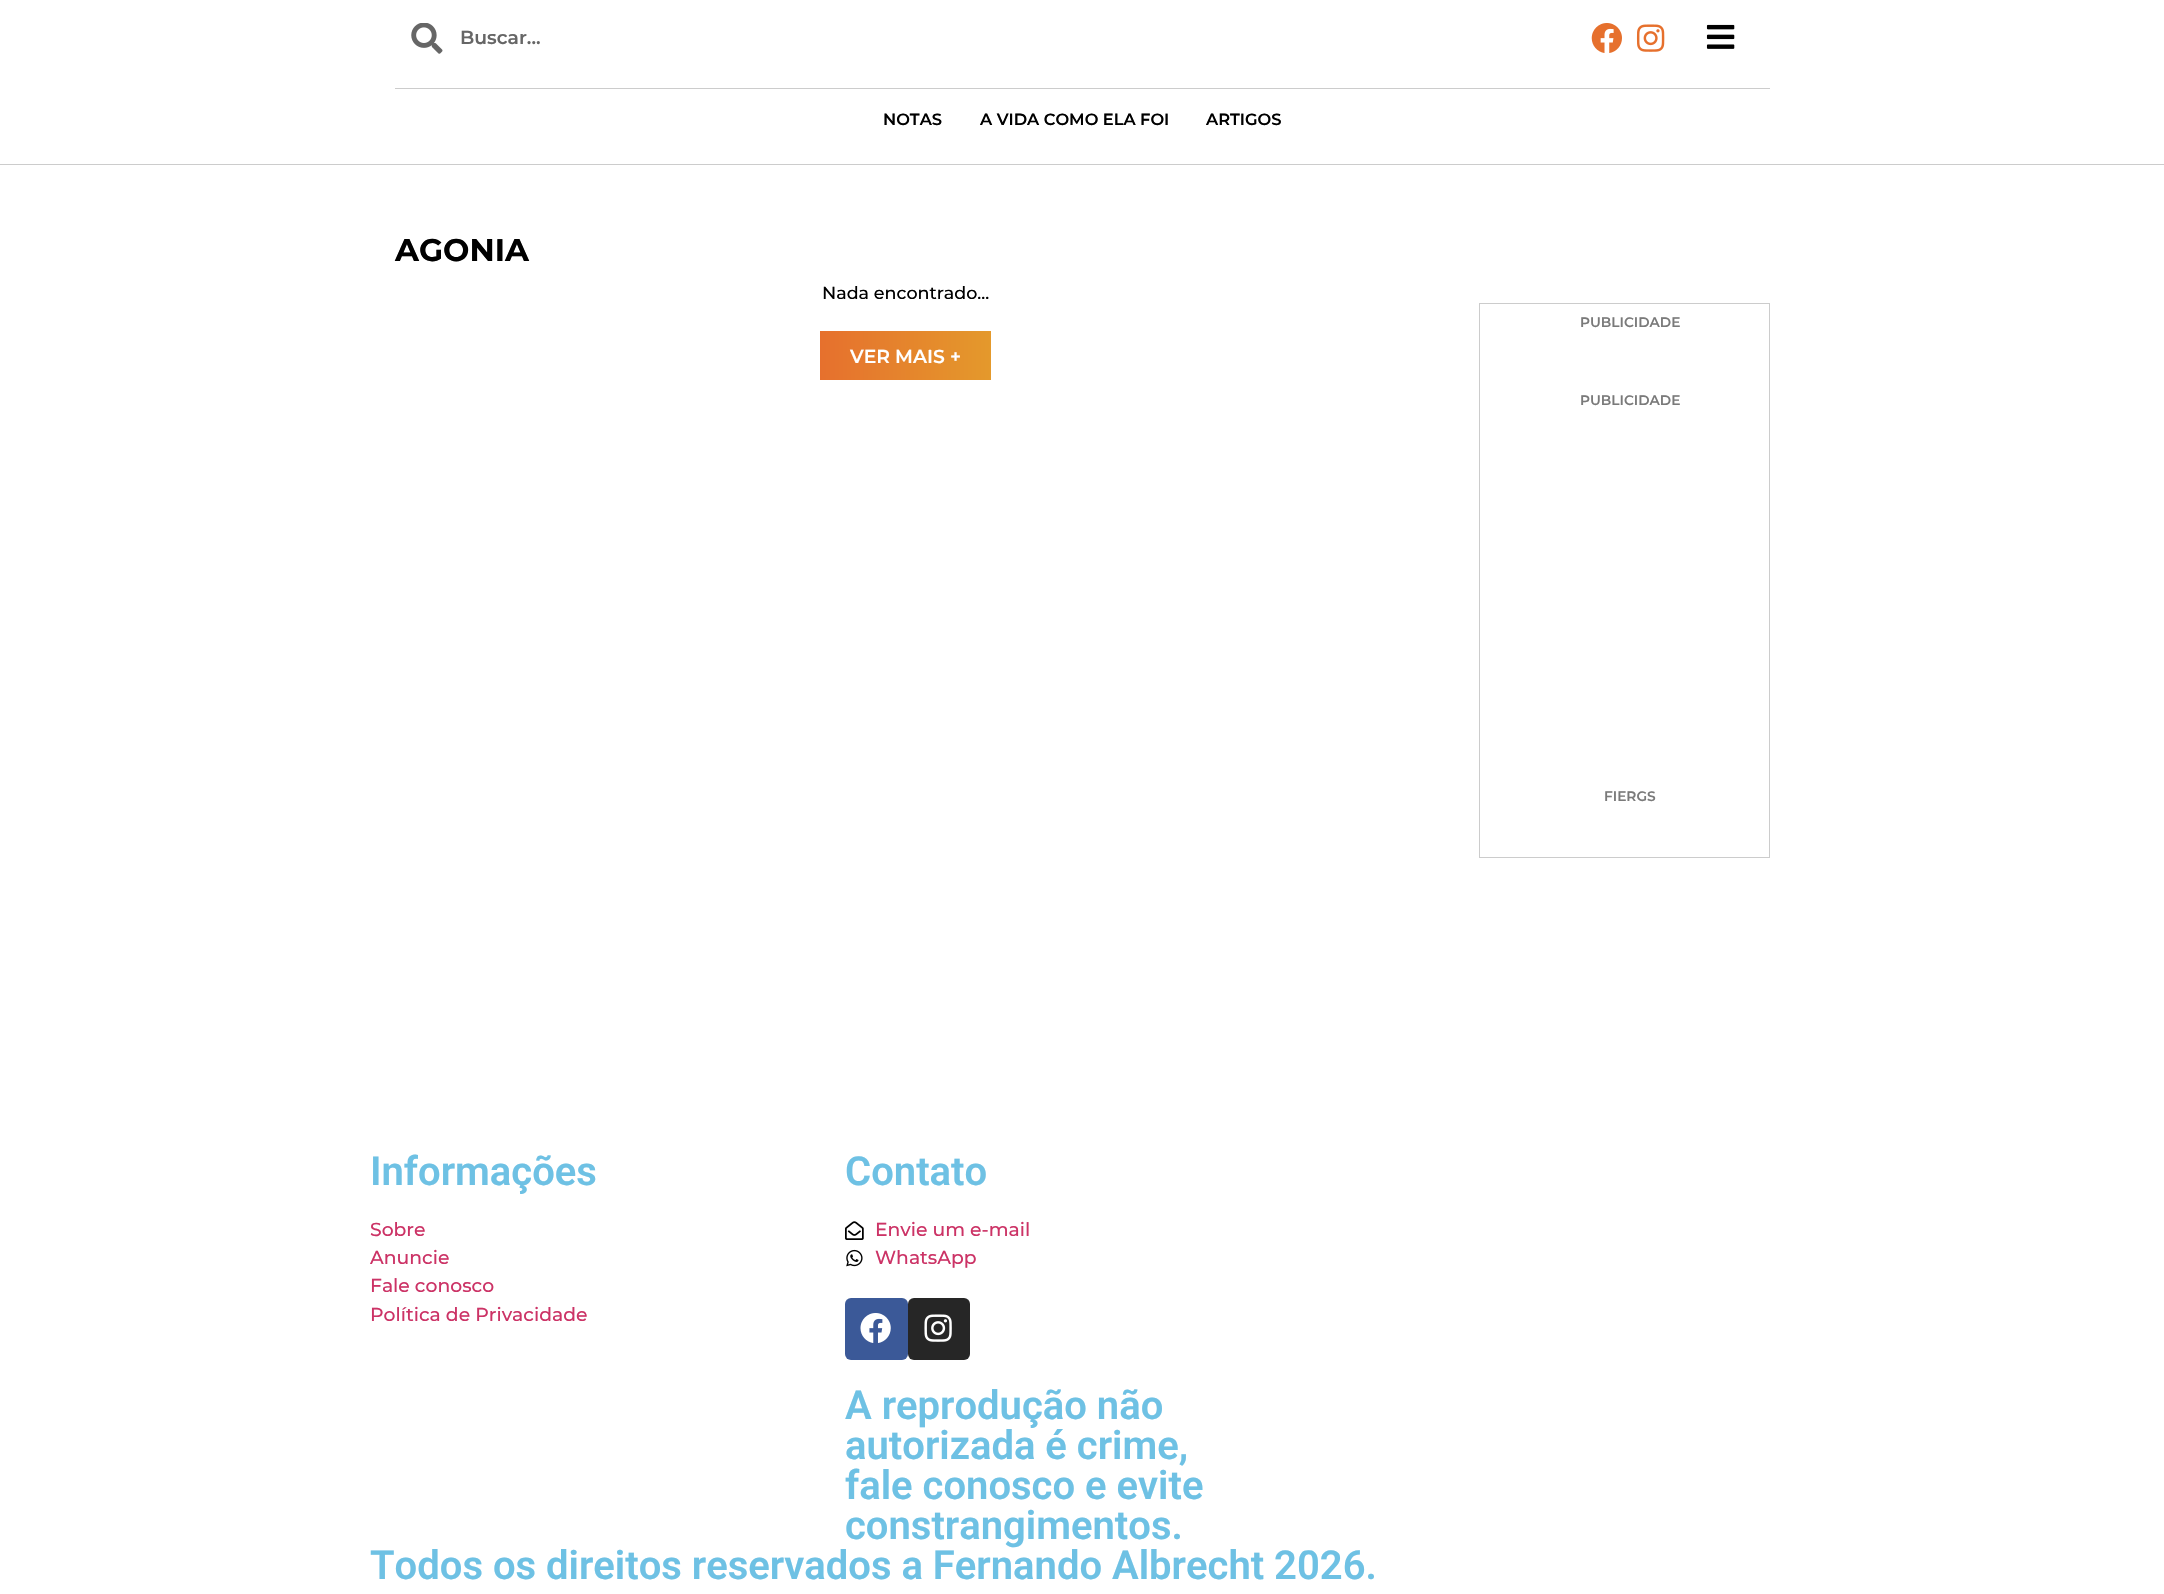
void draw(SkCanvas* canvas) {
    SkPaint paint;
    paint.setAntiAlias(true);
    canvas->clear(0xFFFFFFFF);
    canvas->drawImageRect(SkImages::DeferredFromEncodedData(SkData::MakeFromFileName("img1.png")), SkRect::MakeXYWH(411, 23, 32, 31), SkSamplingOptions());
    SkFont font1(fontMgr->matchFamilyStyle("Montserrat", SkFontStyle(600, SkFontStyle::kNormal_Width, SkFontStyle::kUpright_Slant)), 18.75f);
    font1.setSubpixel(true);
    paint.setColor(0xFF666666);
    canvas->drawString("Buscar...", 460, 44, font1, paint);
    canvas->drawImageRect(SkImages::DeferredFromEncodedData(SkData::MakeFromFileName("img2.png")), SkRect::MakeXYWH(1591, 23, 31, 30), SkSamplingOptions());
    canvas->drawImageRect(SkImages::DeferredFromEncodedData(SkData::MakeFromFileName("img3.png")), SkRect::MakeXYWH(1636, 24, 29, 28), SkSamplingOptions());
    canvas->drawImageRect(SkImages::DeferredFromEncodedData(SkData::MakeFromFileName("img4.png")), SkRect::MakeXYWH(1706, 24, 29, 25), SkSamplingOptions());
    paint.setColor(0xFFCCCCCC);
    canvas->drawRect(SkRect::MakeXYWH(0, 164, 2164, 1), paint);
    canvas->drawRect(SkRect::MakeXYWH(395, 88, 1375, 1), paint);
    SkFont font2(fontMgr->matchFamilyStyle("Montserrat", SkFontStyle(600, SkFontStyle::kNormal_Width, SkFontStyle::kUpright_Slant)), 16.25f);
    font2.setSubpixel(true);
    paint.setColor(0xFF000000);
    canvas->drawString("NOTAS", 883, 125, font2, paint);
    canvas->drawString("A VIDA COMO ELA FOI", 980, 125, font2, paint);
    canvas->drawString("ARTIGOS", 1206, 125, font2, paint);
    SkFont font3(fontMgr->matchFamilyStyle("Montserrat", SkFontStyle::Bold()), 31.25f);
    font3.setSubpixel(true);
    canvas->drawString("AGONIA", 395, 261, font3, paint);
    SkFont font4(fontMgr->matchFamilyStyle("Montserrat", SkFontStyle(500, SkFontStyle::kNormal_Width, SkFontStyle::kUpright_Slant)), 17.5f);
    font4.setSubpixel(true);
    canvas->drawString("Nada encontrado...", 822, 299, font4, paint);
    {
        const SkColor colors[] = {0xFFE6702D, 0xFFE4992C};
        const float stops[] = {0, 1};
        const SkPoint ends[] = {{820, 356}, {991, 356}};
        paint.setShader(SkGradientShader::MakeLinear(ends, colors, stops, 2, SkTileMode::kClamp));
        paint.setAlpha(255);
    }
    canvas->drawRect(SkRect::MakeXYWH(820, 331, 171, 49), paint);
    paint.setShader(nullptr);
    paint.setColor(0xFFFFFFFF);
    canvas->drawString("VER MAIS +", 850, 363, font1, paint);
    paint.setStyle(SkPaint::kStroke_Style);
    paint.setStrokeWidth(1);
    paint.setColor(0xFFCCCCCC);
    canvas->drawRect(SkRect::MakeXYWH(1479.5f, 303.5f, 290, 554), paint);
    SkFont font5(fontMgr->matchFamilyStyle("Montserrat", SkFontStyle(600, SkFontStyle::kNormal_Width, SkFontStyle::kUpright_Slant)), 13.75f);
    font5.setSubpixel(true);
    paint.setStyle(SkPaint::kFill_Style);
    paint.setColor(0xFF7A7A7A);
    canvas->drawString("PUBLICIDADE", 1580, 327, font5, paint);
    canvas->drawString("PUBLICIDADE", 1580, 405, font5, paint);
    canvas->drawString("FIERGS", 1604, 801, font5, paint);
    SkFont font6(fontMgr->matchFamilyStyle("Roboto", SkFontStyle(600, SkFontStyle::kNormal_Width, SkFontStyle::kUpright_Slant)), 40);
    font6.setSubpixel(true);
    paint.setColor(0xFF6EC1E4);
    canvas->drawString("Informações", 370, 1185, font6, paint);
    SkFont font7(fontMgr->matchFamilyStyle("Montserrat", SkFontStyle(500, SkFontStyle::kNormal_Width, SkFontStyle::kUpright_Slant)), 18.75f);
    font7.setSubpixel(true);
    paint.setColor(0xFFCC3366);
    canvas->drawString("Sobre", 370, 1236, font7, paint);
    canvas->drawString("Anuncie", 370, 1264, font7, paint);
    canvas->drawString("Fale conosco", 370, 1292, font7, paint);
    canvas->drawString("Política de Privacidade", 370, 1321, font7, paint);
    paint.setColor(0xFF6EC1E4);
    canvas->drawString("Contato", 845, 1185, font6, paint);
    canvas->drawImageRect(SkImages::DeferredFromEncodedData(SkData::MakeFromFileName("img5.png")), SkRect::MakeXYWH(845, 1221, 19, 19), SkSamplingOptions());
    paint.setColor(0xFFCC3366);
    canvas->drawString("Envie um e-mail", 875, 1236, font7, paint);
    canvas->drawImageRect(SkImages::DeferredFromEncodedData(SkData::MakeFromFileName("img6.png")), SkRect::MakeXYWH(846, 1249, 17, 18), SkSamplingOptions());
    canvas->drawString("WhatsApp", 875, 1264, font7, paint);
    paint.setColor(0xFF3B5998);
    canvas->drawRoundRect(SkRect::MakeXYWH(845, 1298, 63, 62), 6, 6, paint);
    canvas->drawImageRect(SkImages::DeferredFromEncodedData(SkData::MakeFromFileName("img7.png")), SkRect::MakeXYWH(860, 1313, 31, 30), SkSamplingOptions());
    paint.setColor(0xFF262626);
    canvas->drawRoundRect(SkRect::MakeXYWH(908, 1298, 62, 62), 6, 6, paint);
    canvas->drawImageRect(SkImages::DeferredFromEncodedData(SkData::MakeFromFileName("img8.png")), SkRect::MakeXYWH(924, 1314, 28, 28), SkSamplingOptions());
    paint.setColor(0xFF6EC1E4);
    canvas->drawString("A reprodução não", 845, 1419, font6, paint);
    canvas->drawString("autorizada é crime,", 845, 1459, font6, paint);
    canvas->drawString("fale conosco e evite", 845, 1499, font6, paint);
    canvas->drawString("constrangimentos.", 845, 1539, font6, paint);
    canvas->drawString("Todos os direitos reservados a Fernando Albrecht 2026.", 370, 1579, font6, paint);
}
